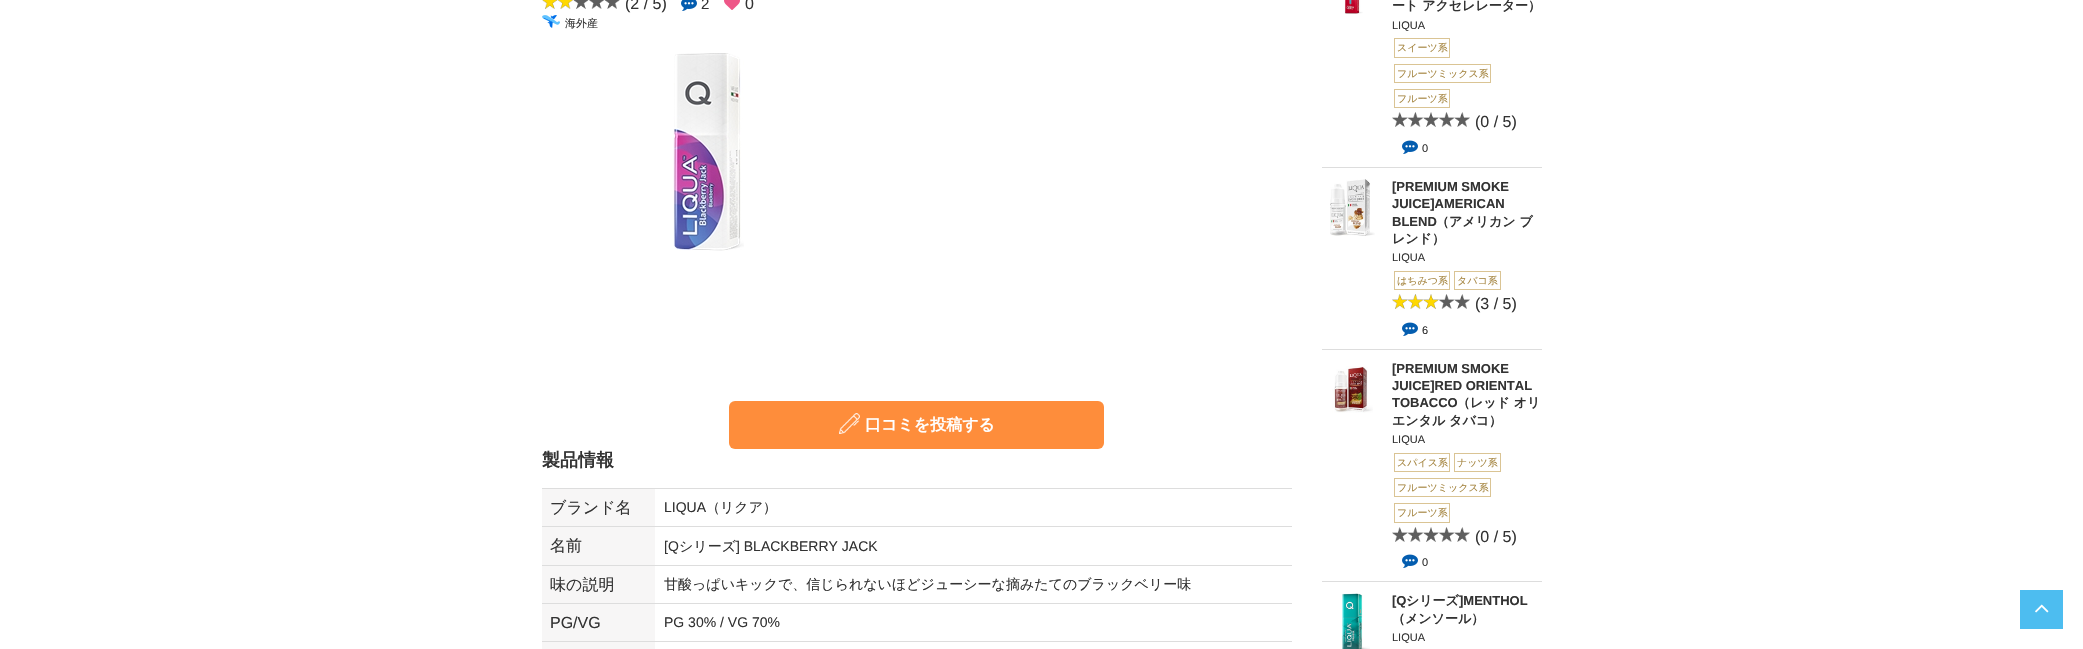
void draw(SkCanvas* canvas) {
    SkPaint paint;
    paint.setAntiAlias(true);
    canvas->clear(0xFFFFFFFF);
    canvas->drawImageRect(SkImages::DeferredFromEncodedData(SkData::MakeFromFileName("img1.png")), SkRect::MakeXYWH(542, 0, 78, 9), SkSamplingOptions());
    SkFont font1(fontMgr->matchFamilyStyle("Liberation Sans", SkFontStyle::Normal()), 16);
    font1.setSubpixel(true);
    paint.setColor(0xFF333333);
    canvas->drawString("(2 / 5)", 625, 9, font1, paint);
    canvas->drawImageRect(SkImages::DeferredFromEncodedData(SkData::MakeFromFileName("img2.png")), SkRect::MakeXYWH(681, 0, 16, 11), SkSamplingOptions());
    SkFont font2(fontMgr->matchFamilyStyle("Liberation Sans", SkFontStyle::Normal()), 15);
    font2.setSubpixel(true);
    canvas->drawString("2", 701, 9, font2, paint);
    canvas->drawImageRect(SkImages::DeferredFromEncodedData(SkData::MakeFromFileName("img3.png")), SkRect::MakeXYWH(724, 0, 16, 10), SkSamplingOptions());
    canvas->drawString("0", 745, 9, font1, paint);
    canvas->drawImageRect(SkImages::DeferredFromEncodedData(SkData::MakeFromFileName("img4.png")), SkRect::MakeXYWH(542, 15, 18, 13), SkSamplingOptions());
    SkFont font3(fontMgr->matchFamilyStyle("WenQuanYi Zen Hei", SkFontStyle(500, SkFontStyle::kNormal_Width, SkFontStyle::kUpright_Slant)), 11);
    font3.setSubpixel(true);
    canvas->drawString("海外産", 565, 27, font3, paint);
    canvas->drawImageRect(SkImages::DeferredFromEncodedData(SkData::MakeFromFileName("img5.png")), SkRect::MakeXYWH(673, 53, 71, 198), SkSamplingOptions());
    paint.setColor(0xFFFE8D3B);
    canvas->drawRoundRect(SkRect::MakeXYWH(729, 401, 375, 48), 6, 6, paint);
    canvas->drawImageRect(SkImages::DeferredFromEncodedData(SkData::MakeFromFileName("img6.png")), SkRect::MakeXYWH(839, 413, 21, 21), SkSamplingOptions());
    SkFont font4(fontMgr->matchFamilyStyle("WenQuanYi Zen Hei", SkFontStyle::Bold()), 16);
    font4.setSubpixel(true);
    paint.setColor(0xFFFFFFFF);
    canvas->drawString("口コミを投稿する", 865, 430, font4, paint);
    SkFont font5(fontMgr->matchFamilyStyle("WenQuanYi Zen Hei", SkFontStyle::Bold()), 18);
    font5.setSubpixel(true);
    paint.setColor(0xFF333333);
    canvas->drawString("製品情報", 542, 466, font5, paint);
    paint.setColor(0xFFDDDDDD);
    canvas->drawRect(SkRect::MakeXYWH(542, 488, 750, 1), paint);
    canvas->drawRect(SkRect::MakeXYWH(542, 526, 750, 1), paint);
    paint.setColor(0xFFF7F6F6);
    canvas->drawRect(SkRect::MakeXYWH(542, 489, 113, 37), paint);
    SkFont font6(fontMgr->matchFamilyStyle("WenQuanYi Zen Hei", SkFontStyle(500, SkFontStyle::kNormal_Width, SkFontStyle::kUpright_Slant)), 16);
    font6.setSubpixel(true);
    paint.setColor(0xFF333333);
    canvas->drawString("ブランド名", 550, 513, font6, paint);
    SkFont font7(fontMgr->matchFamilyStyle("Liberation Sans", SkFontStyle::Normal()), 14);
    font7.setSubpixel(true);
    canvas->drawString("LIQUA", 664, 512, font7, paint);
    SkFont font8(fontMgr->matchFamilyStyle("WenQuanYi Zen Hei", SkFontStyle(500, SkFontStyle::kNormal_Width, SkFontStyle::kUpright_Slant)), 14);
    font8.setSubpixel(true);
    canvas->drawString("（リクア）", 706, 512, font8, paint);
    paint.setColor(0xFFDDDDDD);
    canvas->drawRect(SkRect::MakeXYWH(542, 565, 750, 1), paint);
    paint.setColor(0xFFF7F6F6);
    canvas->drawRect(SkRect::MakeXYWH(542, 527, 113, 38), paint);
    paint.setColor(0xFF333333);
    canvas->drawString("名前", 550, 551, font6, paint);
    canvas->drawString("[Q", 664, 551, font7, paint);
    canvas->drawString("シリーズ", 679, 551, font8, paint);
    canvas->drawString("] BLACKBERRY JACK", 736, 551, font7, paint);
    paint.setColor(0xFFDDDDDD);
    canvas->drawRect(SkRect::MakeXYWH(542, 603, 750, 1), paint);
    paint.setColor(0xFFF7F6F6);
    canvas->drawRect(SkRect::MakeXYWH(542, 566, 113, 37), paint);
    paint.setColor(0xFF333333);
    canvas->drawString("味の説明", 550, 590, font6, paint);
    canvas->drawString("甘酸っぱいキックで、信じられないほどジューシーな摘みたてのブラックベリー味", 664, 589, font8, paint);
    paint.setColor(0xFFDDDDDD);
    canvas->drawRect(SkRect::MakeXYWH(542, 641, 750, 1), paint);
    paint.setColor(0xFFF7F6F6);
    canvas->drawRect(SkRect::MakeXYWH(542, 604, 113, 37), paint);
    paint.setColor(0xFF333333);
    canvas->drawString("PG/VG", 550, 628, font1, paint);
    canvas->drawString("PG 30% / VG 70%", 664, 627, font7, paint);
    paint.setColor(0xFFF7F6F6);
    canvas->drawRect(SkRect::MakeXYWH(542, 642, 113, 7), paint);
    paint.setColor(0xFFDDDDDD);
    canvas->drawRect(SkRect::MakeXYWH(1322, 167, 220, 1), paint);
    canvas->drawImageRect(SkImages::DeferredFromEncodedData(SkData::MakeFromFileName("img7.png")), SkRect::MakeXYWH(1344, 0, 19, 14), SkSamplingOptions());
    SkFont font9(fontMgr->matchFamilyStyle("WenQuanYi Zen Hei", SkFontStyle::Bold()), 13);
    font9.setSubpixel(true);
    paint.setColor(0xFF333333);
    canvas->drawString("ート アクセレレーター）", 1392, 10, font9, paint);
    SkFont font10(fontMgr->matchFamilyStyle("Liberation Sans", SkFontStyle::Normal()), 11);
    font10.setSubpixel(true);
    canvas->drawString("LIQUA", 1392, 29, font10, paint);
    paint.setStyle(SkPaint::kStroke_Style);
    paint.setStrokeWidth(1);
    paint.setColor(0xFFDAC494);
    canvas->drawRect(SkRect::MakeXYWH(1394.5f, 38.5f, 55, 19), paint);
    SkFont font11(fontMgr->matchFamilyStyle("WenQuanYi Zen Hei", SkFontStyle(500, SkFontStyle::kNormal_Width, SkFontStyle::kUpright_Slant)), 10);
    font11.setSubpixel(true);
    paint.setStyle(SkPaint::kFill_Style);
    paint.setColor(0xFFA58540);
    canvas->drawString("スイーツ系", 1397, 51, font11, paint);
    paint.setStyle(SkPaint::kStroke_Style);
    paint.setColor(0xFFDAC494);
    canvas->drawRect(SkRect::MakeXYWH(1394.5f, 64.5f, 96, 18), paint);
    paint.setStyle(SkPaint::kFill_Style);
    paint.setColor(0xFFA58540);
    canvas->drawString("フルーツミックス系", 1397, 77, font11, paint);
    paint.setStyle(SkPaint::kStroke_Style);
    paint.setColor(0xFFDAC494);
    canvas->drawRect(SkRect::MakeXYWH(1394.5f, 89.5f, 55, 18), paint);
    paint.setStyle(SkPaint::kFill_Style);
    paint.setColor(0xFFA58540);
    canvas->drawString("フルーツ系", 1397, 102, font11, paint);
    canvas->drawImageRect(SkImages::DeferredFromEncodedData(SkData::MakeFromFileName("img8.png")), SkRect::MakeXYWH(1392, 112, 78, 15), SkSamplingOptions());
    paint.setColor(0xFF333333);
    canvas->drawString("(0 / 5)", 1475, 127, font1, paint);
    canvas->drawImageRect(SkImages::DeferredFromEncodedData(SkData::MakeFromFileName("img9.png")), SkRect::MakeXYWH(1402, 140, 16, 14), SkSamplingOptions());
    canvas->drawString("0", 1422, 152, font10, paint);
    paint.setColor(0xFFDDDDDD);
    canvas->drawRect(SkRect::MakeXYWH(1322, 349, 220, 1), paint);
    canvas->drawImageRect(SkImages::DeferredFromEncodedData(SkData::MakeFromFileName("img10.png")), SkRect::MakeXYWH(1330, 179, 45, 57), SkSamplingOptions());
    SkFont font12(fontMgr->matchFamilyStyle("Liberation Sans", SkFontStyle::Bold()), 13);
    font12.setSubpixel(true);
    paint.setColor(0xFF333333);
    canvas->drawString("[PREMIUM SMOKE", 1392, 191, font12, paint);
    canvas->drawString("JUICE]AMERICAN", 1392, 208, font12, paint);
    canvas->drawString("BLEND", 1392, 226, font12, paint);
    canvas->drawString("（アメリカン ブ", 1436, 226, font9, paint);
    canvas->drawString("レンド）", 1392, 243, font9, paint);
    canvas->drawString("LIQUA", 1392, 261, font10, paint);
    paint.setStyle(SkPaint::kStroke_Style);
    paint.setColor(0xFFDAC494);
    canvas->drawRect(SkRect::MakeXYWH(1394.5f, 271.5f, 55, 18), paint);
    paint.setStyle(SkPaint::kFill_Style);
    paint.setColor(0xFFA58540);
    canvas->drawString("はちみつ系", 1397, 284, font11, paint);
    paint.setStyle(SkPaint::kStroke_Style);
    paint.setColor(0xFFDAC494);
    canvas->drawRect(SkRect::MakeXYWH(1454.5f, 271.5f, 46, 18), paint);
    paint.setStyle(SkPaint::kFill_Style);
    paint.setColor(0xFFA58540);
    canvas->drawString("タバコ系", 1457, 284, font11, paint);
    canvas->drawImageRect(SkImages::DeferredFromEncodedData(SkData::MakeFromFileName("img11.png")), SkRect::MakeXYWH(1392, 294, 78, 15), SkSamplingOptions());
    paint.setColor(0xFF333333);
    canvas->drawString("(3 / 5)", 1475, 309, font1, paint);
    canvas->drawImageRect(SkImages::DeferredFromEncodedData(SkData::MakeFromFileName("img9.png")), SkRect::MakeXYWH(1402, 322, 16, 14), SkSamplingOptions());
    canvas->drawString("6", 1422, 334, font10, paint);
    paint.setColor(0xFFDDDDDD);
    canvas->drawRect(SkRect::MakeXYWH(1322, 581, 220, 1), paint);
    canvas->drawImageRect(SkImages::DeferredFromEncodedData(SkData::MakeFromFileName("img12.png")), SkRect::MakeXYWH(1332, 366, 41, 47), SkSamplingOptions());
    paint.setColor(0xFF333333);
    canvas->drawString("[PREMIUM SMOKE", 1392, 373, font12, paint);
    canvas->drawString("JUICE]RED ORIENTAL", 1392, 390, font12, paint);
    canvas->drawString("TOBACCO", 1392, 407, font12, paint);
    canvas->drawString("（レッド オリ", 1457, 407, font9, paint);
    canvas->drawString("エンタル タバコ）", 1392, 425, font9, paint);
    canvas->drawString("LIQUA", 1392, 443, font10, paint);
    paint.setStyle(SkPaint::kStroke_Style);
    paint.setColor(0xFFDAC494);
    canvas->drawRect(SkRect::MakeXYWH(1394.5f, 453.5f, 55, 18), paint);
    paint.setStyle(SkPaint::kFill_Style);
    paint.setColor(0xFFA58540);
    canvas->drawString("スパイス系", 1397, 466, font11, paint);
    paint.setStyle(SkPaint::kStroke_Style);
    paint.setColor(0xFFDAC494);
    canvas->drawRect(SkRect::MakeXYWH(1454.5f, 453.5f, 46, 18), paint);
    paint.setStyle(SkPaint::kFill_Style);
    paint.setColor(0xFFA58540);
    canvas->drawString("ナッツ系", 1457, 466, font11, paint);
    paint.setStyle(SkPaint::kStroke_Style);
    paint.setColor(0xFFDAC494);
    canvas->drawRect(SkRect::MakeXYWH(1394.5f, 478.5f, 96, 18), paint);
    paint.setStyle(SkPaint::kFill_Style);
    paint.setColor(0xFFA58540);
    canvas->drawString("フルーツミックス系", 1397, 491, font11, paint);
    paint.setStyle(SkPaint::kStroke_Style);
    paint.setColor(0xFFDAC494);
    canvas->drawRect(SkRect::MakeXYWH(1394.5f, 503.5f, 55, 19), paint);
    paint.setStyle(SkPaint::kFill_Style);
    paint.setColor(0xFFA58540);
    canvas->drawString("フルーツ系", 1397, 516, font11, paint);
    canvas->drawImageRect(SkImages::DeferredFromEncodedData(SkData::MakeFromFileName("img8.png")), SkRect::MakeXYWH(1392, 527, 78, 15), SkSamplingOptions());
    paint.setColor(0xFF333333);
    canvas->drawString("(0 / 5)", 1475, 542, font1, paint);
    canvas->drawImageRect(SkImages::DeferredFromEncodedData(SkData::MakeFromFileName("img9.png")), SkRect::MakeXYWH(1402, 554, 16, 14), SkSamplingOptions());
    canvas->drawString("0", 1422, 566, font10, paint);
    canvas->drawImageRect(SkImages::DeferredFromEncodedData(SkData::MakeFromFileName("img13.png")), SkRect::MakeXYWH(1342, 593, 28, 56), SkSamplingOptions());
    canvas->drawString("[Q", 1392, 605, font12, paint);
    canvas->drawString("シリーズ", 1406, 605, font9, paint);
    canvas->drawString("]MENTHOL", 1459, 605, font12, paint);
    canvas->drawString("（メンソール）", 1392, 623, font9, paint);
    canvas->drawString("LIQUA", 1392, 641, font10, paint);
    paint.setColor(0xFF4DBDF0);
    canvas->drawRect(SkRect::MakeXYWH(2020, 590, 43, 39), paint);
    canvas->drawImageRect(SkImages::DeferredFromEncodedData(SkData::MakeFromFileName("img14.png")), SkRect::MakeXYWH(2035, 604, 14, 9), SkSamplingOptions());
}
